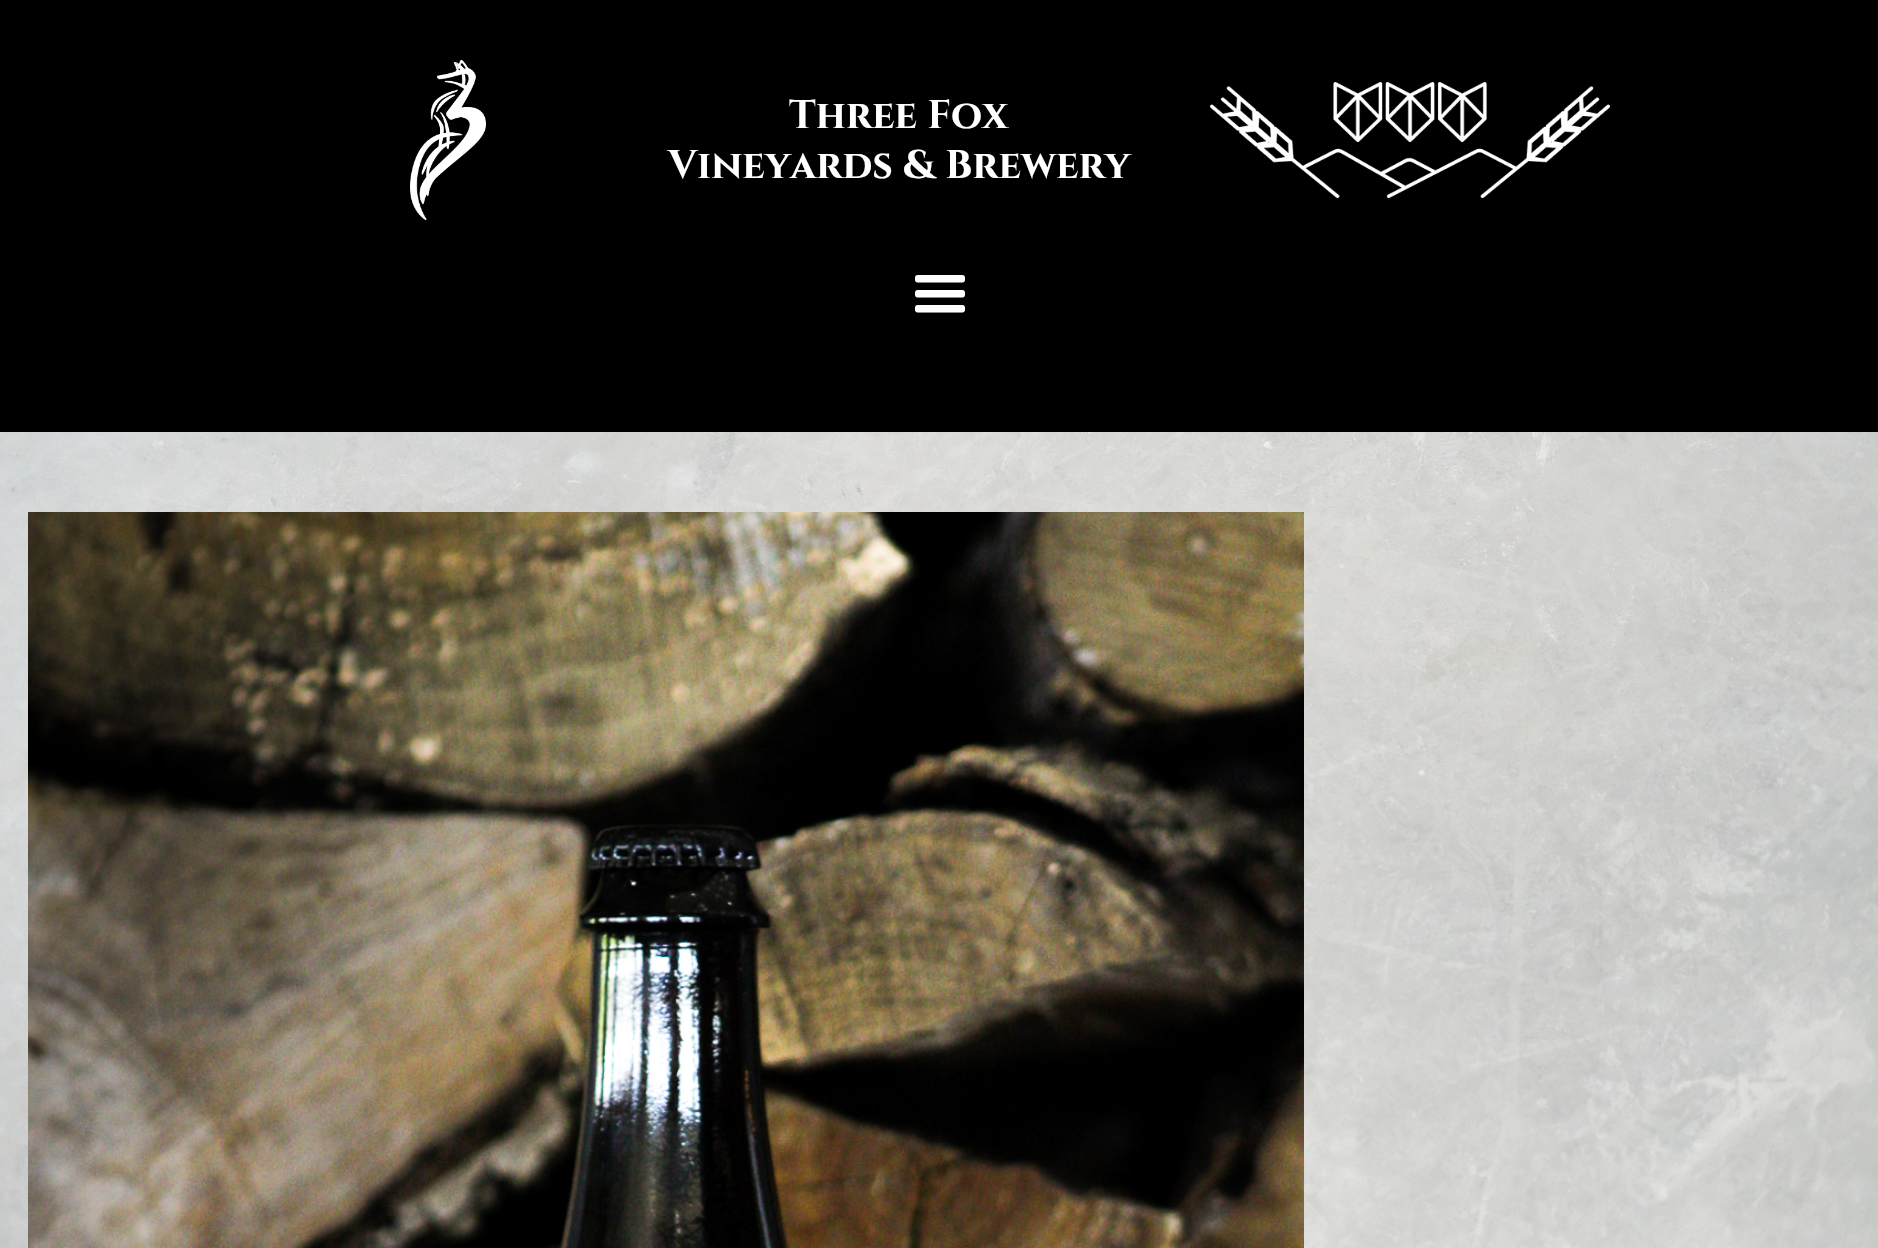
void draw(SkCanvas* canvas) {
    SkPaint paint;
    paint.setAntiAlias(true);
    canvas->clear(0xFFFFFFFF);
    canvas->drawImageRect(SkImages::DeferredFromEncodedData(SkData::MakeFromFileName("img1.png")), SkRect::MakeXYWH(0, 432, 1878, 816), SkSamplingOptions());
    paint.setColor(0xFF000000);
    canvas->drawRect(SkRect::MakeXYWH(0, 0, 1878, 432), paint);
    canvas->drawImageRect(SkImages::DeferredFromEncodedData(SkData::MakeFromFileName("img2.png")), SkRect::MakeXYWH(410, 60, 76, 160), SkSamplingOptions());
    SkFont font1(fontMgr->matchFamilyStyle("Cinzel", SkFontStyle::Bold()), 40);
    font1.setSubpixel(true);
    paint.setColor(0xFFFFFFFF);
    canvas->drawString("Three Fox", 789, 128, font1, paint);
    canvas->drawString("Vineyards & Brewery", 668, 178, font1, paint);
    canvas->drawImageRect(SkImages::DeferredFromEncodedData(SkData::MakeFromFileName("img3.png")), SkRect::MakeXYWH(1210, 82, 400, 116), SkSamplingOptions());
    canvas->drawImageRect(SkImages::DeferredFromEncodedData(SkData::MakeFromFileName("img4.png")), SkRect::MakeXYWH(915, 275, 50, 38), SkSamplingOptions());
    canvas->drawImageRect(SkImages::DeferredFromEncodedData(SkData::MakeFromFileName("img5.png")), SkRect::MakeXYWH(28, 512, 1276, 736), SkSamplingOptions());
}
